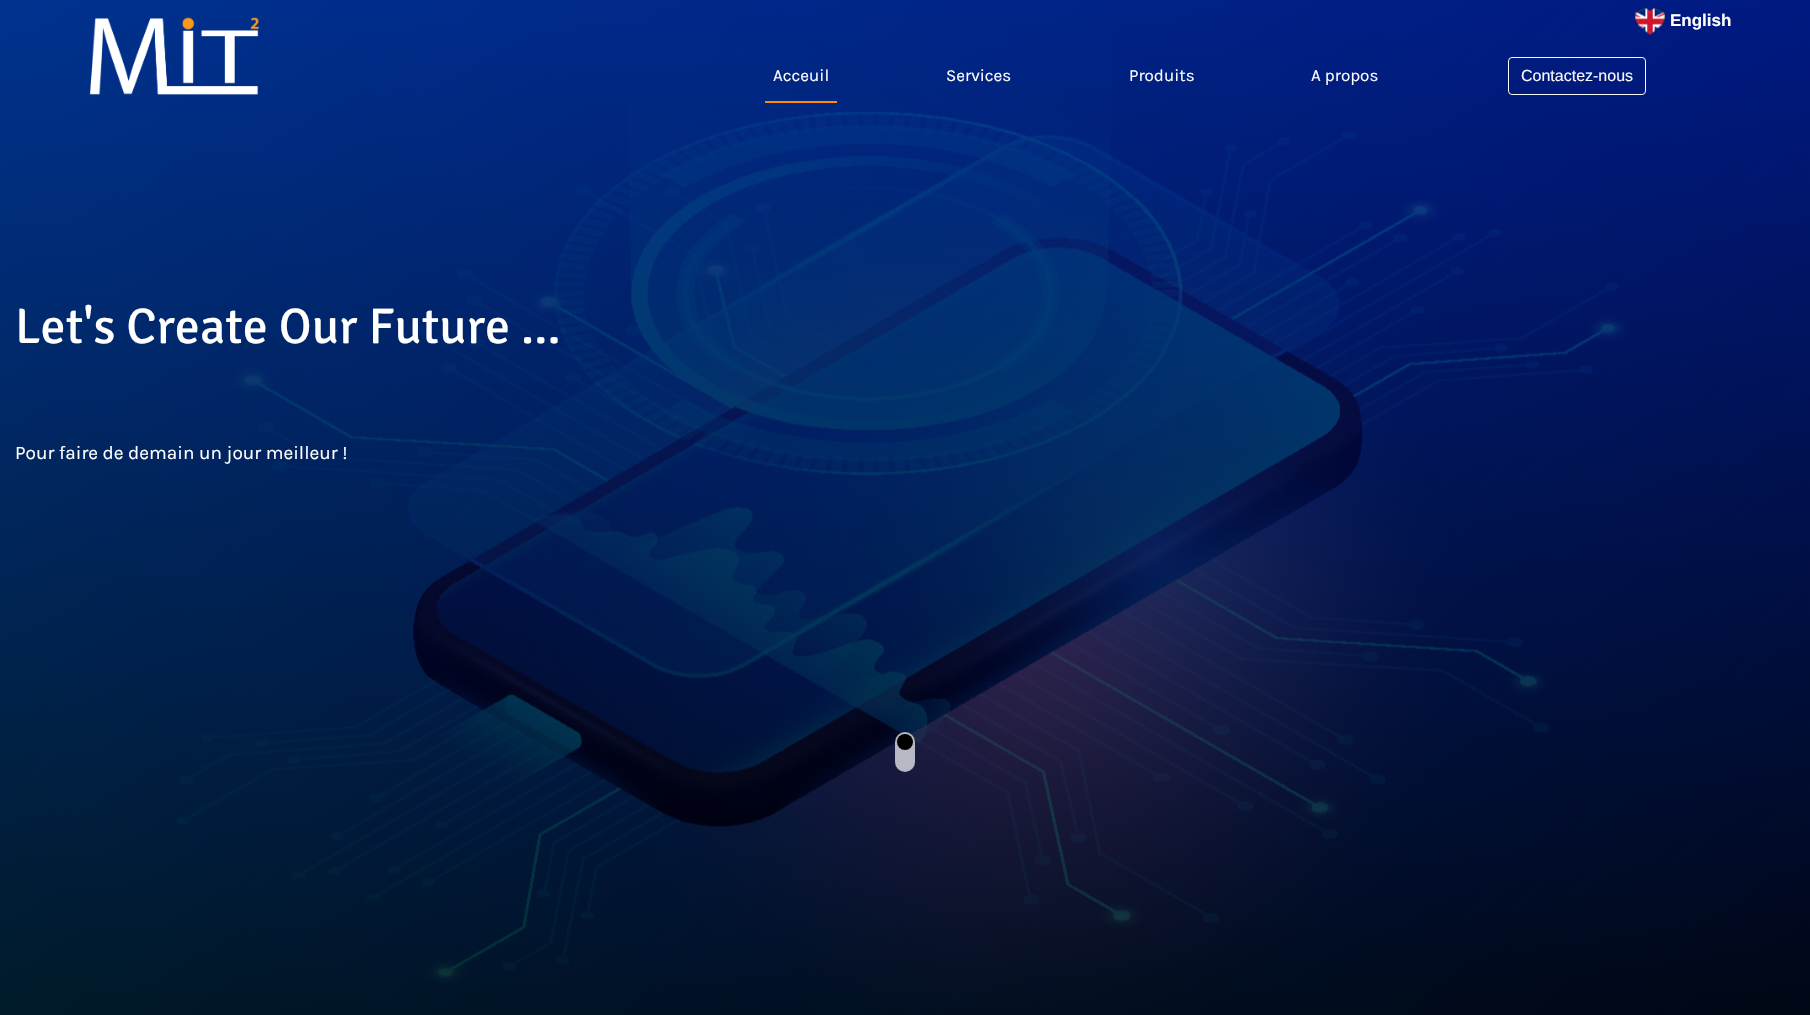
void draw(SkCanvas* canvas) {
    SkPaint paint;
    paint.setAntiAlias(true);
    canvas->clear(0xFFFFFFFF);
    canvas->drawImageRect(SkImages::DeferredFromEncodedData(SkData::MakeFromFileName("img1.png")), SkRect::MakeXYWH(0, 0, 1810, 1015), SkSamplingOptions());
    canvas->drawImageRect(SkImages::DeferredFromEncodedData(SkData::MakeFromFileName("img2.png")), SkRect::MakeXYWH(89, 17, 171, 78), SkSamplingOptions());
    canvas->drawImageRect(SkImages::DeferredFromEncodedData(SkData::MakeFromFileName("img3.png")), SkRect::MakeXYWH(1635, 8, 30, 27), SkSamplingOptions());
    SkFont font1(fontMgr->matchFamilyStyle("Liberation Sans", SkFontStyle::Bold()), 17);
    font1.setSubpixel(true);
    paint.setColor(0xFFFFFFFF);
    canvas->drawString("English", 1670, 26, font1, paint);
    paint.setColor(0xFFFF8C00);
    canvas->drawRect(SkRect::MakeXYWH(765, 101, 72, 2), paint);
    SkFont font2(fontMgr->matchFamilyStyle("Karla", SkFontStyle::Normal()), 17);
    font2.setSubpixel(true);
    paint.setColor(0xFFFFFFFF);
    canvas->drawString("Acceuil", 773, 81, font2, paint);
    canvas->drawString("Services", 946, 81, font2, paint);
    canvas->drawString("Produits", 1129, 81, font2, paint);
    canvas->drawString("A propos", 1311, 81, font2, paint);
    paint.setStyle(SkPaint::kStroke_Style);
    paint.setStrokeWidth(1);
    paint.setColor(0xFFF8F9FA);
    canvas->drawRoundRect(SkRect::MakeXYWH(1508.5f, 57.5f, 137, 37), 3.5f, 3.5f, paint);
    SkFont font3(fontMgr->matchFamilyStyle("Liberation Sans", SkFontStyle::Normal()), 16);
    font3.setSubpixel(true);
    paint.setStyle(SkPaint::kFill_Style);
    canvas->drawString("Contactez-nous", 1521, 81, font3, paint);
    SkFont font4(fontMgr->matchFamilyStyle("Signika", SkFontStyle::Normal()), 50);
    font4.setSubpixel(true);
    paint.setColor(0xFFFFFFFF);
    canvas->drawString("Let's Create Our Future ...", 15, 343, font4, paint);
    SkFont font5(fontMgr->matchFamilyStyle("Karla", SkFontStyle::Normal()), 19);
    font5.setSubpixel(true);
    canvas->drawString("Pour faire de demain un jour meilleur !", 15, 459, font5, paint);
    paint.setColor(0xB0FFFFFF);
    canvas->drawRoundRect(SkRect::MakeXYWH(895, 732, 20, 40), 10, 10, paint);
    paint.setColor(0xFF000000);
    canvas->drawCircle(905, 742, 8, paint);
}
